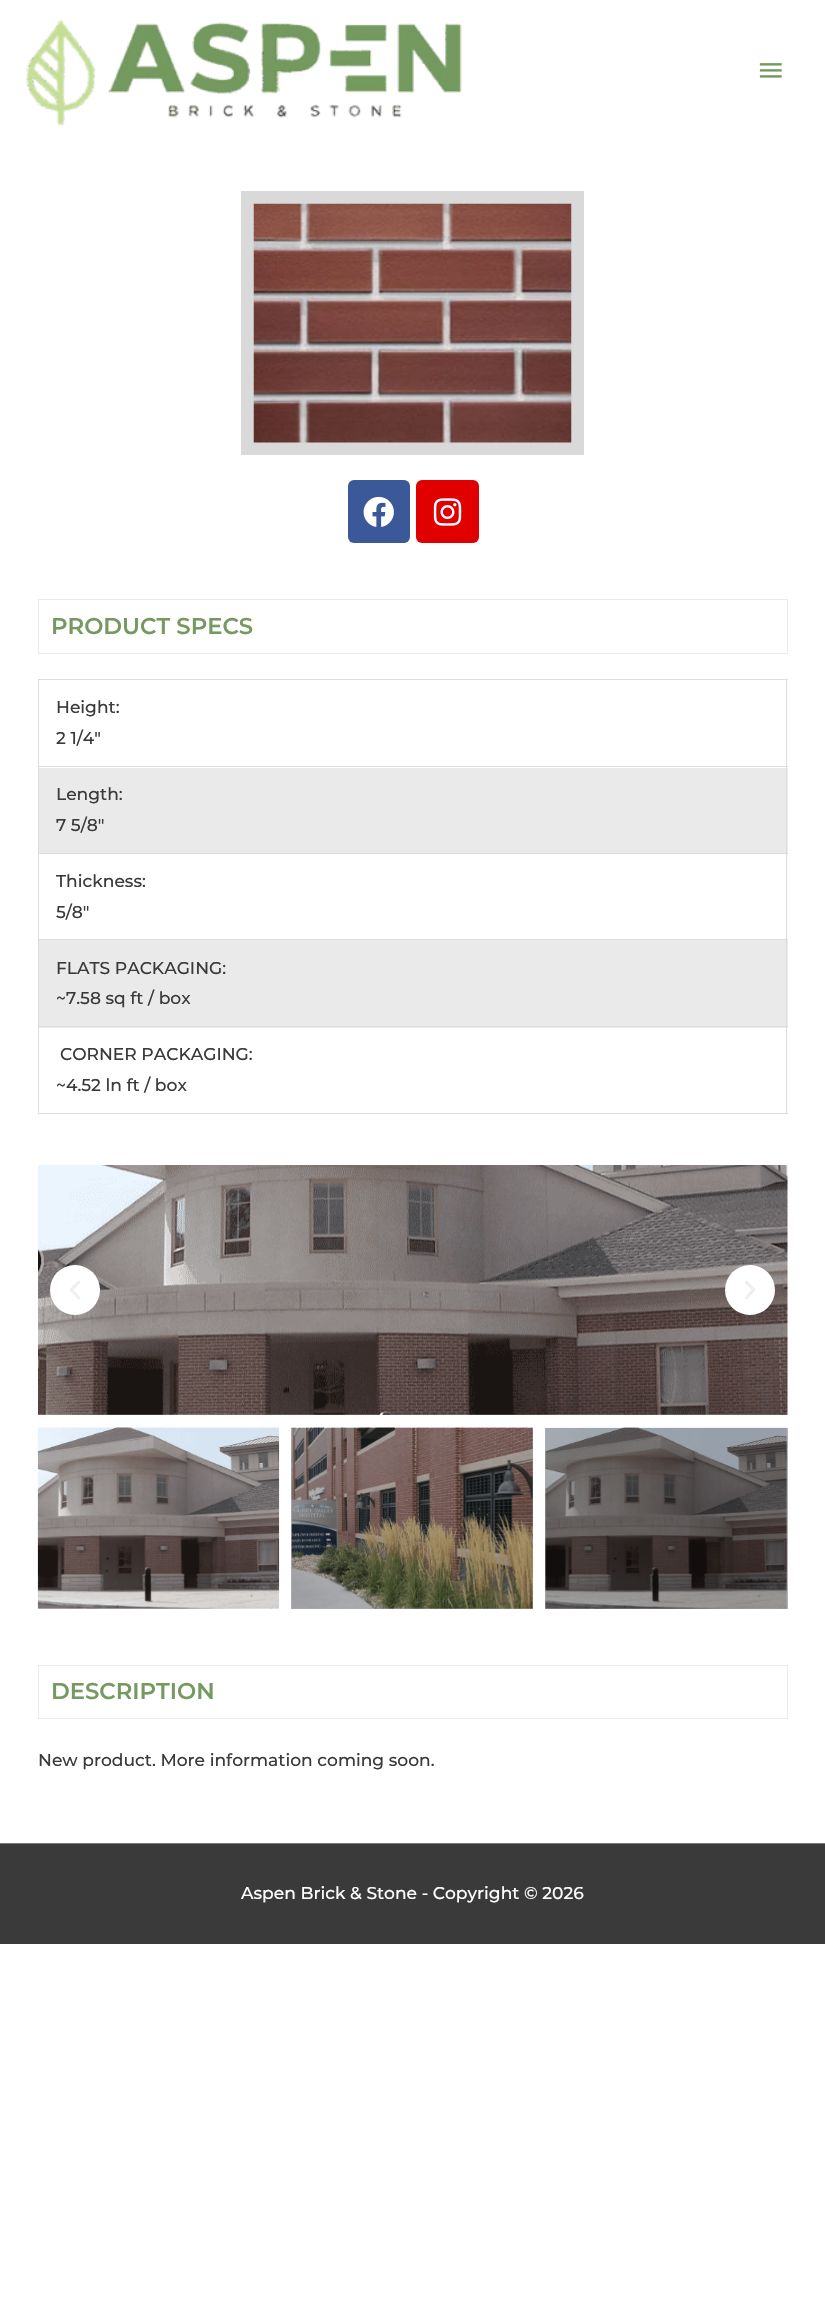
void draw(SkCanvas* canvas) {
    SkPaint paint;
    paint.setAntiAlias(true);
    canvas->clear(0xFFFFFFFF);
    paint.setColor(0xFFB3B3B3);
    canvas->drawRect(SkRect::MakeXYWH(545, 1428, 243, 181), paint);
    canvas->drawRect(SkRect::MakeXYWH(291, 1428, 242, 181), paint);
    canvas->drawImageRect(SkImages::DeferredFromEncodedData(SkData::MakeFromFileName("img1.png")), SkRect::MakeXYWH(26, 20, 437, 105), SkSamplingOptions());
    canvas->drawImageRect(SkImages::DeferredFromEncodedData(SkData::MakeFromFileName("img2.png")), SkRect::MakeXYWH(759, 63, 23, 15), SkSamplingOptions());
    paint.setStyle(SkPaint::kStroke_Style);
    paint.setStrokeWidth(13);
    paint.setColor(0xFFD9D9D9);
    canvas->drawRect(SkRect::MakeXYWH(247.5f, 197.5f, 330, 251), paint);
    canvas->drawImageRect(SkImages::DeferredFromEncodedData(SkData::MakeFromFileName("img3.png")), SkRect::MakeXYWH(253, 203, 319, 240), SkSamplingOptions());
    paint.setStyle(SkPaint::kFill_Style);
    paint.setColor(0xFF3B5998);
    canvas->drawRoundRect(SkRect::MakeXYWH(348, 480, 62, 63), 6, 6, paint);
    canvas->drawImageRect(SkImages::DeferredFromEncodedData(SkData::MakeFromFileName("img4.png")), SkRect::MakeXYWH(363, 496, 31, 31), SkSamplingOptions());
    paint.setColor(0xFFE10000);
    canvas->drawRoundRect(SkRect::MakeXYWH(416, 480, 63, 63), 6, 6, paint);
    canvas->drawImageRect(SkImages::DeferredFromEncodedData(SkData::MakeFromFileName("img5.png")), SkRect::MakeXYWH(433, 498, 29, 28), SkSamplingOptions());
    paint.setStyle(SkPaint::kStroke_Style);
    paint.setStrokeWidth(1);
    paint.setColor(0xFFEAEAEA);
    canvas->drawRect(SkRect::MakeXYWH(38.5f, 599.5f, 749, 54), paint);
    SkFont font1(fontMgr->matchFamilyStyle("Montserrat", SkFontStyle(600, SkFontStyle::kNormal_Width, SkFontStyle::kUpright_Slant)), 22.75f);
    font1.setSubpixel(true);
    paint.setStyle(SkPaint::kFill_Style);
    paint.setColor(0xFF759960);
    canvas->drawString("PRODUCT SPECS", 51, 634, font1, paint);
    paint.setColor(0xFFDDDDDD);
    canvas->drawRect(SkRect::MakeXYWH(38, 679, 750, 1), paint);
    canvas->drawRect(SkRect::MakeXYWH(38, 679, 1, 435), paint);
    canvas->drawRect(SkRect::MakeXYWH(786, 680, 1, 88), paint);
    canvas->drawRect(SkRect::MakeXYWH(39, 766, 749, 1), paint);
    SkFont font2(fontMgr->matchFamilyStyle("Montserrat", SkFontStyle(500, SkFontStyle::kNormal_Width, SkFontStyle::kUpright_Slant)), 17.1f);
    font2.setSubpixel(true);
    paint.setColor(0xFF3A3A3A);
    canvas->drawString("Height:", 56, 713, font2, paint);
    canvas->drawString("2 1/4″", 56, 744, font2, paint);
    paint.setColor(0xFFEAEAEA);
    canvas->drawRect(SkRect::MakeXYWH(39, 768, 749, 85), paint);
    paint.setColor(0xFFDDDDDD);
    canvas->drawRect(SkRect::MakeXYWH(786, 768, 1, 172), paint);
    canvas->drawRect(SkRect::MakeXYWH(39, 853, 749, 1), paint);
    paint.setColor(0xFF3A3A3A);
    canvas->drawString("Length:", 56, 800, font2, paint);
    canvas->drawString("7 5/8″", 56, 831, font2, paint);
    paint.setColor(0xFFDDDDDD);
    canvas->drawRect(SkRect::MakeXYWH(39, 939, 749, 1), paint);
    paint.setColor(0xFF3A3A3A);
    canvas->drawString("Thickness:", 56, 887, font2, paint);
    canvas->drawString("5/8″", 56, 918, font2, paint);
    paint.setColor(0xFFEAEAEA);
    canvas->drawRect(SkRect::MakeXYWH(39, 940, 749, 88), paint);
    paint.setColor(0xFFDDDDDD);
    canvas->drawRect(SkRect::MakeXYWH(786, 940, 1, 174), paint);
    canvas->drawRect(SkRect::MakeXYWH(39, 1026, 749, 1), paint);
    paint.setColor(0xFF3A3A3A);
    canvas->drawString("FLATS PACKAGING:", 56, 974, font2, paint);
    canvas->drawString("~7.58 sq ft / box", 56, 1004, font2, paint);
    paint.setColor(0xFFDDDDDD);
    canvas->drawRect(SkRect::MakeXYWH(39, 1113, 749, 1), paint);
    paint.setColor(0xFF3A3A3A);
    canvas->drawString("CORNER PACKAGING:", 60, 1060, font2, paint);
    canvas->drawString("~4.52 ln ft / box", 56, 1091, font2, paint);
    canvas->drawImageRect(SkImages::DeferredFromEncodedData(SkData::MakeFromFileName("img6.png")), SkRect::MakeXYWH(38, 1165, 750, 250), SkSamplingOptions());
    paint.setColor(0xFFFFFFFF);
    canvas->drawCircle(75, 1290, 25, paint);
    canvas->drawImageRect(SkImages::DeferredFromEncodedData(SkData::MakeFromFileName("img7.png")), SkRect::MakeXYWH(70, 1280, 10, 20), SkSamplingOptions());
    canvas->drawCircle(750, 1290, 25, paint);
    canvas->drawImageRect(SkImages::DeferredFromEncodedData(SkData::MakeFromFileName("img8.png")), SkRect::MakeXYWH(745, 1280, 11, 20), SkSamplingOptions());
    canvas->drawImageRect(SkImages::DeferredFromEncodedData(SkData::MakeFromFileName("img9.png")), SkRect::MakeXYWH(37, 1427, 243, 182), SkSamplingOptions());
    canvas->drawImageRect(SkImages::DeferredFromEncodedData(SkData::MakeFromFileName("img10.png")), SkRect::MakeXYWH(291, 1427, 242, 182), SkSamplingOptions());
    canvas->drawImageRect(SkImages::DeferredFromEncodedData(SkData::MakeFromFileName("img11.png")), SkRect::MakeXYWH(545, 1427, 242, 182), SkSamplingOptions());
    paint.setStyle(SkPaint::kStroke_Style);
    paint.setColor(0xFFEAEAEA);
    canvas->drawRect(SkRect::MakeXYWH(38.5f, 1665.5f, 749, 53), paint);
    paint.setStyle(SkPaint::kFill_Style);
    paint.setColor(0xFF759960);
    canvas->drawString("DESCRIPTION", 51, 1699, font1, paint);
    paint.setColor(0xFF3A3A3A);
    canvas->drawString("New product. More information coming soon.", 38, 1766, font2, paint);
    paint.setColor(0xFF7A7A7A);
    canvas->drawRect(SkRect::MakeXYWH(0, 1843, 825, 1), paint);
    paint.setColor(0xFF3A3A3A);
    canvas->drawRect(SkRect::MakeXYWH(0, 1844, 825, 100), paint);
    paint.setColor(0xFFFFFFFF);
    canvas->drawString("Aspen Brick & Stone - Copyright © 2026", 241, 1899, font2, paint);
}
